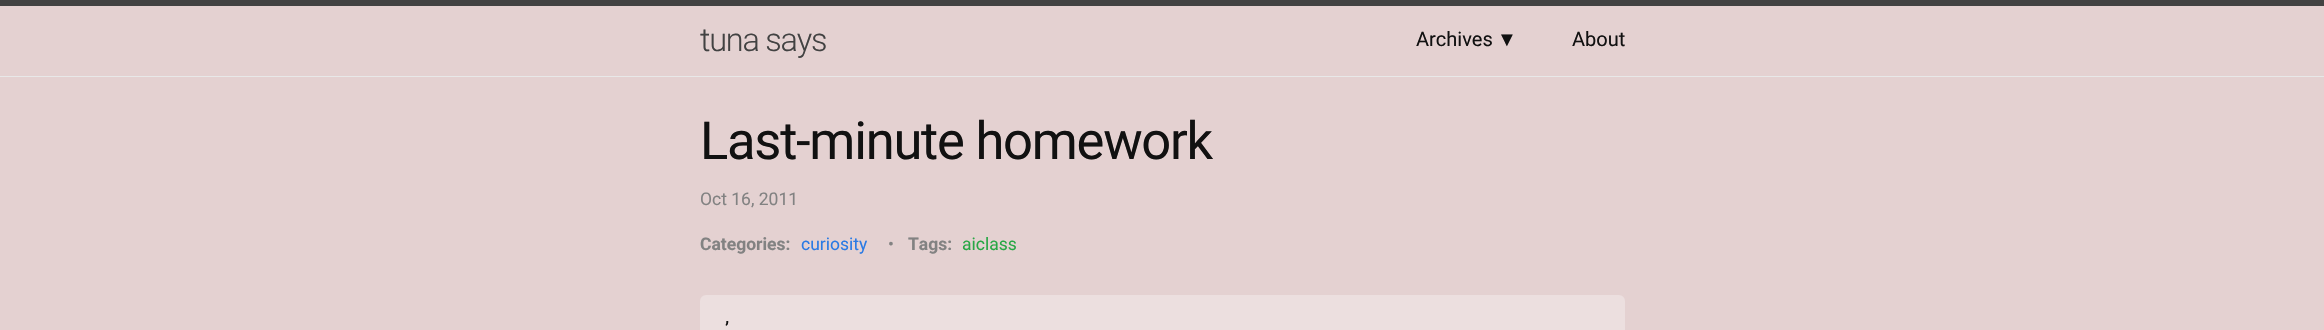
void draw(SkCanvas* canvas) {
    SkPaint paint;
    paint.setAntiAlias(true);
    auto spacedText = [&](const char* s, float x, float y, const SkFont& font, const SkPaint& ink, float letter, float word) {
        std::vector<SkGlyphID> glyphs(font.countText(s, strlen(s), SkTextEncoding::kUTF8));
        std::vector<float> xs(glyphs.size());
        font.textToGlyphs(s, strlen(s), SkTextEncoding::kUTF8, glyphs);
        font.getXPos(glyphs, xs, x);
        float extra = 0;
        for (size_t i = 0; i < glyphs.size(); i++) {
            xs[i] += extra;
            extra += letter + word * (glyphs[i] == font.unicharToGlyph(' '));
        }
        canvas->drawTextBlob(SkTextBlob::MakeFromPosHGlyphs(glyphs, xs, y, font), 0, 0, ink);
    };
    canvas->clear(0xFFE4D1D1);
    paint.setColor(0xFF424242);
    canvas->drawRect(SkRect::MakeXYWH(0, 0, 2324, 6), paint);
    paint.setColor(0xFFE8E8E8);
    canvas->drawRect(SkRect::MakeXYWH(0, 76, 2324, 1), paint);
    SkFont font1(fontMgr->matchFamilyStyle("Roboto", SkFontStyle(300, SkFontStyle::kNormal_Width, SkFontStyle::kUpright_Slant)), 32.5f);
    font1.setSubpixel(true);
    paint.setColor(0xFF424242);
    spacedText("tuna says", 700, 51, font1, paint, -1.25f, 0);
    SkFont font2(fontMgr->matchFamilyStyle("Roboto", SkFontStyle::Normal()), 20);
    font2.setSubpixel(true);
    paint.setColor(0xFF111111);
    canvas->drawString("Archives", 1416, 46, font2, paint);
    SkFont font3(fontMgr->matchFamilyStyle("Liberation Sans", SkFontStyle::Normal()), 20);
    font3.setSubpixel(true);
    canvas->drawString("▼", 1497, 46, font3, paint);
    canvas->drawString("About", 1572, 46, font2, paint);
    SkFont font4(fontMgr->matchFamilyStyle("Roboto", SkFontStyle::Normal()), 52.5f);
    font4.setSubpixel(true);
    spacedText("Last-minute homework", 700, 159, font4, paint, -1.25f, 0);
    SkFont font5(fontMgr->matchFamilyStyle("Roboto", SkFontStyle::Normal()), 17.5f);
    font5.setSubpixel(true);
    paint.setColor(0xFF828282);
    canvas->drawString("Oct 16, 2011", 700, 205, font5, paint);
    SkFont font6(fontMgr->matchFamilyStyle("Roboto", SkFontStyle::Bold()), 17.5f);
    font6.setSubpixel(true);
    canvas->drawString("Categories:", 700, 250, font6, paint);
    paint.setColor(0xFF2A7AE4);
    canvas->drawString("curiosity", 801, 250, font5, paint);
    paint.setColor(0xFF828282);
    canvas->drawString("•", 888, 250, font5, paint);
    canvas->drawString("Tags:", 908, 250, font6, paint);
    paint.setColor(0xFF28A745);
    canvas->drawString("aiclass", 962, 250, font5, paint);
    paint.setColor(0xFFECDFDF);
    canvas->drawRoundRect(SkRect::MakeXYWH(700, 295, 925, 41), 6, 6, paint);
    paint.setColor(0xFF111111);
    canvas->drawString("’", 725, 336, font2, paint);
}
